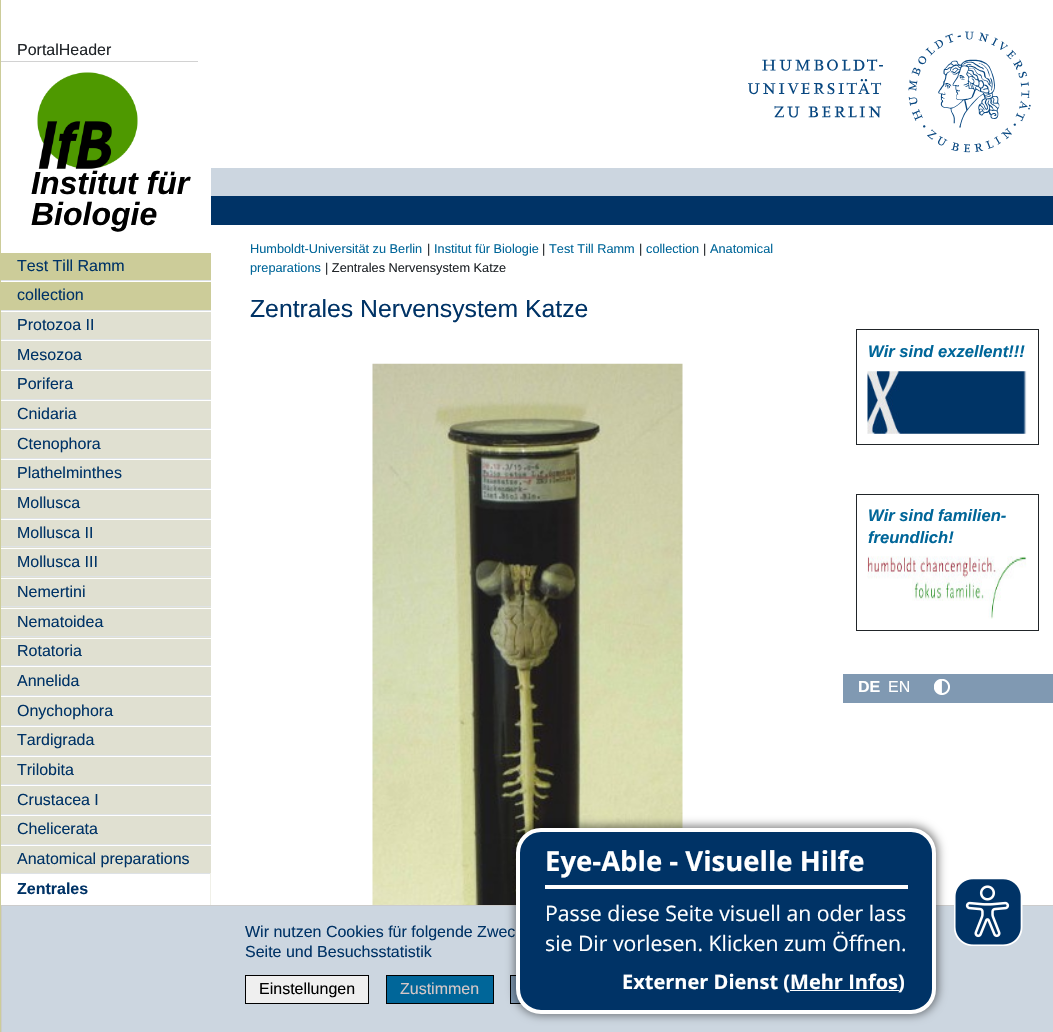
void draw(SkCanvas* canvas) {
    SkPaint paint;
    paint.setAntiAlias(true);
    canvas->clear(0xFFFFFFFF);
    canvas->drawImageRect(SkImages::DeferredFromEncodedData(SkData::MakeFromFileName("img1.png")), SkRect::MakeXYWH(748, 31, 283, 122), SkSamplingOptions());
    paint.setColor(0xFFCCCC99);
    canvas->drawRect(SkRect::MakeXYWH(0, 0, 1, 1032), paint);
    paint.setColor(0xFFD2D2D2);
    canvas->drawRect(SkRect::MakeXYWH(1, 61, 197, 1), paint);
    SkFont font1(fontMgr->matchFamilyStyle("Liberation Sans", SkFontStyle::Normal()), 16);
    font1.setSubpixel(true);
    paint.setColor(0xFF212529);
    canvas->drawString("PortalHeader", 17, 55, font1, paint);
    canvas->drawImageRect(SkImages::DeferredFromEncodedData(SkData::MakeFromFileName("img2.png")), SkRect::MakeXYWH(37, 72, 101, 97), SkSamplingOptions());
    SkFont font2(fontMgr->matchFamilyStyle("Liberation Sans", SkFontStyle::BoldItalic()), 32);
    font2.setSubpixel(true);
    paint.setColor(0xFF000000);
    canvas->drawString("Institut für", 31, 194, font2, paint);
    canvas->drawString("Biologie", 31, 225, font2, paint);
    paint.setColor(0xFFCCCC99);
    canvas->drawRect(SkRect::MakeXYWH(1, 253, 210, 27), paint);
    paint.setColor(0xFF003366);
    canvas->drawString("Test Till Ramm", 17, 271, font1, paint);
    paint.setColor(0xFFCCCC99);
    canvas->drawRect(SkRect::MakeXYWH(1, 282, 210, 28), paint);
    paint.setColor(0xFFDEE2E6);
    canvas->drawRect(SkRect::MakeXYWH(1, 280, 210, 1), paint);
    paint.setColor(0xFF003366);
    canvas->drawString("collection", 17, 300, font1, paint);
    paint.setColor(0xFFE0E0D1);
    canvas->drawRect(SkRect::MakeXYWH(1, 312, 210, 27), paint);
    paint.setColor(0xFFDEE2E6);
    canvas->drawRect(SkRect::MakeXYWH(1, 310, 210, 1), paint);
    paint.setColor(0xFF003366);
    canvas->drawString("Protozoa II", 17, 330, font1, paint);
    paint.setColor(0xFFE0E0D1);
    canvas->drawRect(SkRect::MakeXYWH(1, 341, 210, 28), paint);
    paint.setColor(0xFFDEE2E6);
    canvas->drawRect(SkRect::MakeXYWH(1, 339, 210, 1), paint);
    paint.setColor(0xFF003366);
    canvas->drawString("Mesozoa", 17, 360, font1, paint);
    paint.setColor(0xFFE0E0D1);
    canvas->drawRect(SkRect::MakeXYWH(1, 371, 210, 28), paint);
    paint.setColor(0xFFDEE2E6);
    canvas->drawRect(SkRect::MakeXYWH(1, 369, 210, 1), paint);
    paint.setColor(0xFF003366);
    canvas->drawString("Porifera", 17, 389, font1, paint);
    paint.setColor(0xFFE0E0D1);
    canvas->drawRect(SkRect::MakeXYWH(1, 401, 210, 27), paint);
    paint.setColor(0xFFDEE2E6);
    canvas->drawRect(SkRect::MakeXYWH(1, 399, 210, 1), paint);
    paint.setColor(0xFF003366);
    canvas->drawString("Cnidaria", 17, 419, font1, paint);
    paint.setColor(0xFFE0E0D1);
    canvas->drawRect(SkRect::MakeXYWH(1, 430, 210, 28), paint);
    paint.setColor(0xFFDEE2E6);
    canvas->drawRect(SkRect::MakeXYWH(1, 428, 210, 1), paint);
    paint.setColor(0xFF003366);
    canvas->drawString("Ctenophora", 17, 449, font1, paint);
    paint.setColor(0xFFE0E0D1);
    canvas->drawRect(SkRect::MakeXYWH(1, 460, 210, 28), paint);
    paint.setColor(0xFFDEE2E6);
    canvas->drawRect(SkRect::MakeXYWH(1, 458, 210, 1), paint);
    paint.setColor(0xFF003366);
    canvas->drawString("Plathelminthes", 17, 478, font1, paint);
    paint.setColor(0xFFE0E0D1);
    canvas->drawRect(SkRect::MakeXYWH(1, 490, 210, 28), paint);
    paint.setColor(0xFFDEE2E6);
    canvas->drawRect(SkRect::MakeXYWH(1, 488, 210, 1), paint);
    paint.setColor(0xFF003366);
    canvas->drawString("Mollusca", 17, 508, font1, paint);
    paint.setColor(0xFFE0E0D1);
    canvas->drawRect(SkRect::MakeXYWH(1, 520, 210, 26), paint);
    paint.setColor(0xFFDEE2E6);
    canvas->drawRect(SkRect::MakeXYWH(1, 518, 210, 1), paint);
    paint.setColor(0xFF003366);
    canvas->drawString("Mollusca II", 17, 538, font1, paint);
    paint.setColor(0xFFE0E0D1);
    canvas->drawRect(SkRect::MakeXYWH(1, 547, 210, 29), paint);
    paint.setColor(0xFFDEE2E6);
    canvas->drawRect(SkRect::MakeXYWH(1, 546, 210, 1), paint);
    paint.setColor(0xFFFFFFFF);
    canvas->drawRect(SkRect::MakeXYWH(1, 548, 210, 1), paint);
    paint.setColor(0xFF003366);
    canvas->drawString("Mollusca III", 17, 567, font1, paint);
    paint.setColor(0xFFE0E0D1);
    canvas->drawRect(SkRect::MakeXYWH(1, 577, 210, 29), paint);
    paint.setColor(0xFFDEE2E6);
    canvas->drawRect(SkRect::MakeXYWH(1, 576, 210, 1), paint);
    paint.setColor(0xFFFFFFFF);
    canvas->drawRect(SkRect::MakeXYWH(1, 578, 210, 1), paint);
    paint.setColor(0xFF003366);
    canvas->drawString("Nemertini", 17, 597, font1, paint);
    paint.setColor(0xFFE0E0D1);
    canvas->drawRect(SkRect::MakeXYWH(1, 607, 210, 29), paint);
    paint.setColor(0xFFDEE2E6);
    canvas->drawRect(SkRect::MakeXYWH(1, 606, 210, 1), paint);
    paint.setColor(0xFFFFFFFF);
    canvas->drawRect(SkRect::MakeXYWH(1, 608, 210, 1), paint);
    paint.setColor(0xFF003366);
    canvas->drawString("Nematoidea", 17, 627, font1, paint);
    paint.setColor(0xFFE0E0D1);
    canvas->drawRect(SkRect::MakeXYWH(1, 637, 210, 28), paint);
    paint.setColor(0xFFDEE2E6);
    canvas->drawRect(SkRect::MakeXYWH(1, 636, 210, 1), paint);
    paint.setColor(0xFFFFFFFF);
    canvas->drawRect(SkRect::MakeXYWH(1, 638, 210, 1), paint);
    paint.setColor(0xFF003366);
    canvas->drawString("Rotatoria", 17, 656, font1, paint);
    paint.setColor(0xFFE0E0D1);
    canvas->drawRect(SkRect::MakeXYWH(1, 667, 210, 28), paint);
    paint.setColor(0xFFDEE2E6);
    canvas->drawRect(SkRect::MakeXYWH(1, 665, 210, 1), paint);
    paint.setColor(0xFF003366);
    canvas->drawString("Annelida", 17, 686, font1, paint);
    paint.setColor(0xFFE0E0D1);
    canvas->drawRect(SkRect::MakeXYWH(1, 697, 210, 28), paint);
    paint.setColor(0xFFDEE2E6);
    canvas->drawRect(SkRect::MakeXYWH(1, 695, 210, 1), paint);
    paint.setColor(0xFF003366);
    canvas->drawString("Onychophora", 17, 716, font1, paint);
    paint.setColor(0xFFE0E0D1);
    canvas->drawRect(SkRect::MakeXYWH(1, 727, 210, 28), paint);
    paint.setColor(0xFFDEE2E6);
    canvas->drawRect(SkRect::MakeXYWH(1, 725, 210, 1), paint);
    paint.setColor(0xFF003366);
    canvas->drawString("Tardigrada", 17, 745, font1, paint);
    paint.setColor(0xFFE0E0D1);
    canvas->drawRect(SkRect::MakeXYWH(1, 757, 210, 27), paint);
    paint.setColor(0xFFDEE2E6);
    canvas->drawRect(SkRect::MakeXYWH(1, 755, 210, 1), paint);
    paint.setColor(0xFF003366);
    canvas->drawString("Trilobita", 17, 775, font1, paint);
    paint.setColor(0xFFE0E0D1);
    canvas->drawRect(SkRect::MakeXYWH(1, 786, 210, 28), paint);
    paint.setColor(0xFFDEE2E6);
    canvas->drawRect(SkRect::MakeXYWH(1, 784, 210, 1), paint);
    paint.setColor(0xFF003366);
    canvas->drawString("Crustacea I", 17, 805, font1, paint);
    paint.setColor(0xFFE0E0D1);
    canvas->drawRect(SkRect::MakeXYWH(1, 816, 210, 28), paint);
    paint.setColor(0xFFDEE2E6);
    canvas->drawRect(SkRect::MakeXYWH(1, 814, 210, 1), paint);
    paint.setColor(0xFF003366);
    canvas->drawString("Chelicerata", 17, 834, font1, paint);
    paint.setColor(0xFFE0E0D1);
    canvas->drawRect(SkRect::MakeXYWH(1, 846, 210, 27), paint);
    paint.setColor(0xFFDEE2E6);
    canvas->drawRect(SkRect::MakeXYWH(1, 844, 210, 1), paint);
    paint.setColor(0xFF003366);
    canvas->drawString("Anatomical preparations", 17, 864, font1, paint);
    paint.setColor(0xFFDEE2E6);
    canvas->drawRect(SkRect::MakeXYWH(1, 873, 210, 1), paint);
    paint.setColor(0xFFF0F0E8);
    canvas->drawRect(SkRect::MakeXYWH(210, 873, 1, 32), paint);
    SkFont font3(fontMgr->matchFamilyStyle("Liberation Sans", SkFontStyle::Bold()), 16);
    font3.setSubpixel(true);
    paint.setColor(0xFF003366);
    canvas->drawString("Zentrales", 17, 894, font3, paint);
    paint.setColor(0xFFCCD6E0);
    canvas->drawRect(SkRect::MakeXYWH(211, 168, 842, 28), paint);
    paint.setColor(0xFF003366);
    canvas->drawRect(SkRect::MakeXYWH(211, 196, 842, 29), paint);
    SkFont font4(fontMgr->matchFamilyStyle("Liberation Sans", SkFontStyle::Normal()), 12.75f);
    font4.setSubpixel(true);
    paint.setColor(0xFF006699);
    canvas->drawString("Humboldt-Universität zu Berlin", 250, 253, font4, paint);
    paint.setColor(0xFF212529);
    canvas->drawString("|", 427, 253, font4, paint);
    paint.setColor(0xFF006699);
    canvas->drawString("Institut für Biologie", 434, 253, font4, paint);
    paint.setColor(0xFF212529);
    canvas->drawString("|", 542, 253, font4, paint);
    paint.setColor(0xFF006699);
    canvas->drawString("Test Till Ramm", 549, 253, font4, paint);
    paint.setColor(0xFF212529);
    canvas->drawString("|", 639, 253, font4, paint);
    paint.setColor(0xFF006699);
    canvas->drawString("collection", 646, 253, font4, paint);
    paint.setColor(0xFF212529);
    canvas->drawString("|", 703, 253, font4, paint);
    paint.setColor(0xFF006699);
    canvas->drawString("Anatomical", 710, 253, font4, paint);
    canvas->drawString("preparations", 250, 272, font4, paint);
    paint.setColor(0xFF212529);
    canvas->drawString("| Zentrales Nervensystem Katze", 325, 272, font4, paint);
    SkFont font5(fontMgr->matchFamilyStyle("Liberation Sans", SkFontStyle::Normal()), 24.75f);
    font5.setSubpixel(true);
    paint.setColor(0xFF003366);
    canvas->drawString("Zentrales Nervensystem Katze", 250, 317, font5, paint);
    canvas->drawImageRect(SkImages::DeferredFromEncodedData(SkData::MakeFromFileName("img3.png")), SkRect::MakeXYWH(372, 363, 311, 542), SkSamplingOptions());
    paint.setStyle(SkPaint::kStroke_Style);
    paint.setStrokeWidth(1);
    paint.setColor(0xFF212529);
    canvas->drawRect(SkRect::MakeXYWH(856.5f, 329.5f, 182, 115), paint);
    SkFont font6(fontMgr->matchFamilyStyle("Liberation Sans", SkFontStyle::BoldItalic()), 16.6f);
    font6.setSubpixel(true);
    paint.setStyle(SkPaint::kFill_Style);
    paint.setColor(0xFF006699);
    canvas->drawString("Wir sind exzellent!!!", 868, 357, font6, paint);
    canvas->drawImageRect(SkImages::DeferredFromEncodedData(SkData::MakeFromFileName("img4.png")), SkRect::MakeXYWH(867, 371, 160, 63), SkSamplingOptions());
    paint.setStyle(SkPaint::kStroke_Style);
    paint.setColor(0xFF212529);
    canvas->drawRect(SkRect::MakeXYWH(856.5f, 494.5f, 182, 136), paint);
    paint.setStyle(SkPaint::kFill_Style);
    paint.setColor(0xFF006699);
    canvas->drawString("Wir sind familien-", 868, 521, font6, paint);
    canvas->drawString("freundlich!", 868, 543, font6, paint);
    canvas->drawImageRect(SkImages::DeferredFromEncodedData(SkData::MakeFromFileName("img5.png")), SkRect::MakeXYWH(867, 556, 160, 63), SkSamplingOptions());
    paint.setColor(0xFF8099B2);
    canvas->drawRect(SkRect::MakeXYWH(843, 674, 210, 29), paint);
    paint.setColor(0xFFFFFFFF);
    canvas->drawString("DE", 858, 692, font3, paint);
    canvas->drawString("EN", 888, 692, font1, paint);
    canvas->drawImageRect(SkImages::DeferredFromEncodedData(SkData::MakeFromFileName("img6.png")), SkRect::MakeXYWH(934, 679, 16, 16), SkSamplingOptions());
    paint.setColor(0xFFCCD6E0);
    canvas->drawRect(SkRect::MakeXYWH(1.5f, 905.5f, 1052, 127), paint);
    paint.setStyle(SkPaint::kStroke_Style);
    paint.setColor(0xFFCCCCCC);
    canvas->drawRect(SkRect::MakeXYWH(1.5f, 905.5f, 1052, 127), paint);
    paint.setStyle(SkPaint::kFill_Style);
    paint.setColor(0xFF003366);
    canvas->drawString("Wir nutzen Cookies für folgende Zwec", 245, 937, font1, paint);
    canvas->drawString("Seite und Besuchsstatistik", 245, 957, font1, paint);
    paint.setColor(0xFFEFEFEF);
    canvas->drawRect(SkRect::MakeXYWH(245.5f, 975.5f, 123, 28), paint);
    paint.setStyle(SkPaint::kStroke_Style);
    paint.setColor(0xFF000000);
    canvas->drawRect(SkRect::MakeXYWH(245.5f, 975.5f, 123, 28), paint);
    paint.setStyle(SkPaint::kFill_Style);
    canvas->drawString("Einstellungen", 259, 994, font1, paint);
    paint.setColor(0xFF006699);
    canvas->drawRect(SkRect::MakeXYWH(386.5f, 975.5f, 107, 28), paint);
    paint.setStyle(SkPaint::kStroke_Style);
    paint.setColor(0xFF000000);
    canvas->drawRect(SkRect::MakeXYWH(386.5f, 975.5f, 107, 28), paint);
    paint.setStyle(SkPaint::kFill_Style);
    paint.setColor(0xFFD5C7C7);
    canvas->drawString("Zustimmen", 400, 994, font1, paint);
    paint.setColor(0xFF8099B2);
    canvas->drawRect(SkRect::MakeXYWH(511, 976, 10, 27), paint);
    paint.setStyle(SkPaint::kStroke_Style);
    paint.setColor(0xFF000000);
    canvas->drawRect(SkRect::MakeXYWH(510.5f, 975.5f, 95, 28), paint);
    paint.setStyle(SkPaint::kFill_Style);
    paint.setColor(0x80000000);
    paint.setMaskFilter(SkMaskFilter::MakeBlur(kNormal_SkBlurStyle, 5));
    canvas->drawRoundRect(SkRect::MakeXYWH(515, 826, 423, 189), 26, 26, paint);
    paint.setMaskFilter(nullptr);
    paint.setColor(0xFF003366);
    canvas->drawRoundRect(SkRect::MakeXYWH(518, 830, 416, 182), 23, 23, paint);
    paint.setStyle(SkPaint::kStroke_Style);
    paint.setStrokeWidth(4);
    paint.setColor(0xFFFFFFFF);
    canvas->drawRoundRect(SkRect::MakeXYWH(518, 830, 416, 182), 23, 23, paint);
    paint.setStyle(SkPaint::kFill_Style);
    canvas->drawRect(SkRect::MakeXYWH(545, 885, 363, 4), paint);
    SkFont font7(fontMgr->matchFamilyStyle("Open Sans", SkFontStyle::Bold()), 27.5f);
    font7.setSubpixel(true);
    canvas->drawString("Eye-Able - Visuelle Hilfe", 545, 871, font7, paint);
    SkFont font8(fontMgr->matchFamilyStyle("Open Sans", SkFontStyle::Normal()), 21.25f);
    font8.setSubpixel(true);
    canvas->drawString("Passe diese Seite visuell an oder lass", 545, 921, font8, paint);
    canvas->drawString("sie Dir vorlesen. Klicken zum Öffnen.", 545, 951, font8, paint);
    SkFont font9(fontMgr->matchFamilyStyle("Open Sans", SkFontStyle::Bold()), 20);
    font9.setSubpixel(true);
    canvas->drawString("Externer Dienst (Mehr Infos", 622, 989, font9, paint);
    canvas->drawRect(SkRect::MakeXYWH(790, 990, 109, 1), paint);
    canvas->drawString(")", 898, 989, font9, paint);
    canvas->drawImageRect(SkImages::DeferredFromEncodedData(SkData::MakeFromFileName("img7.png")), SkRect::MakeXYWH(954, 879, 69, 67), SkSamplingOptions());
}
